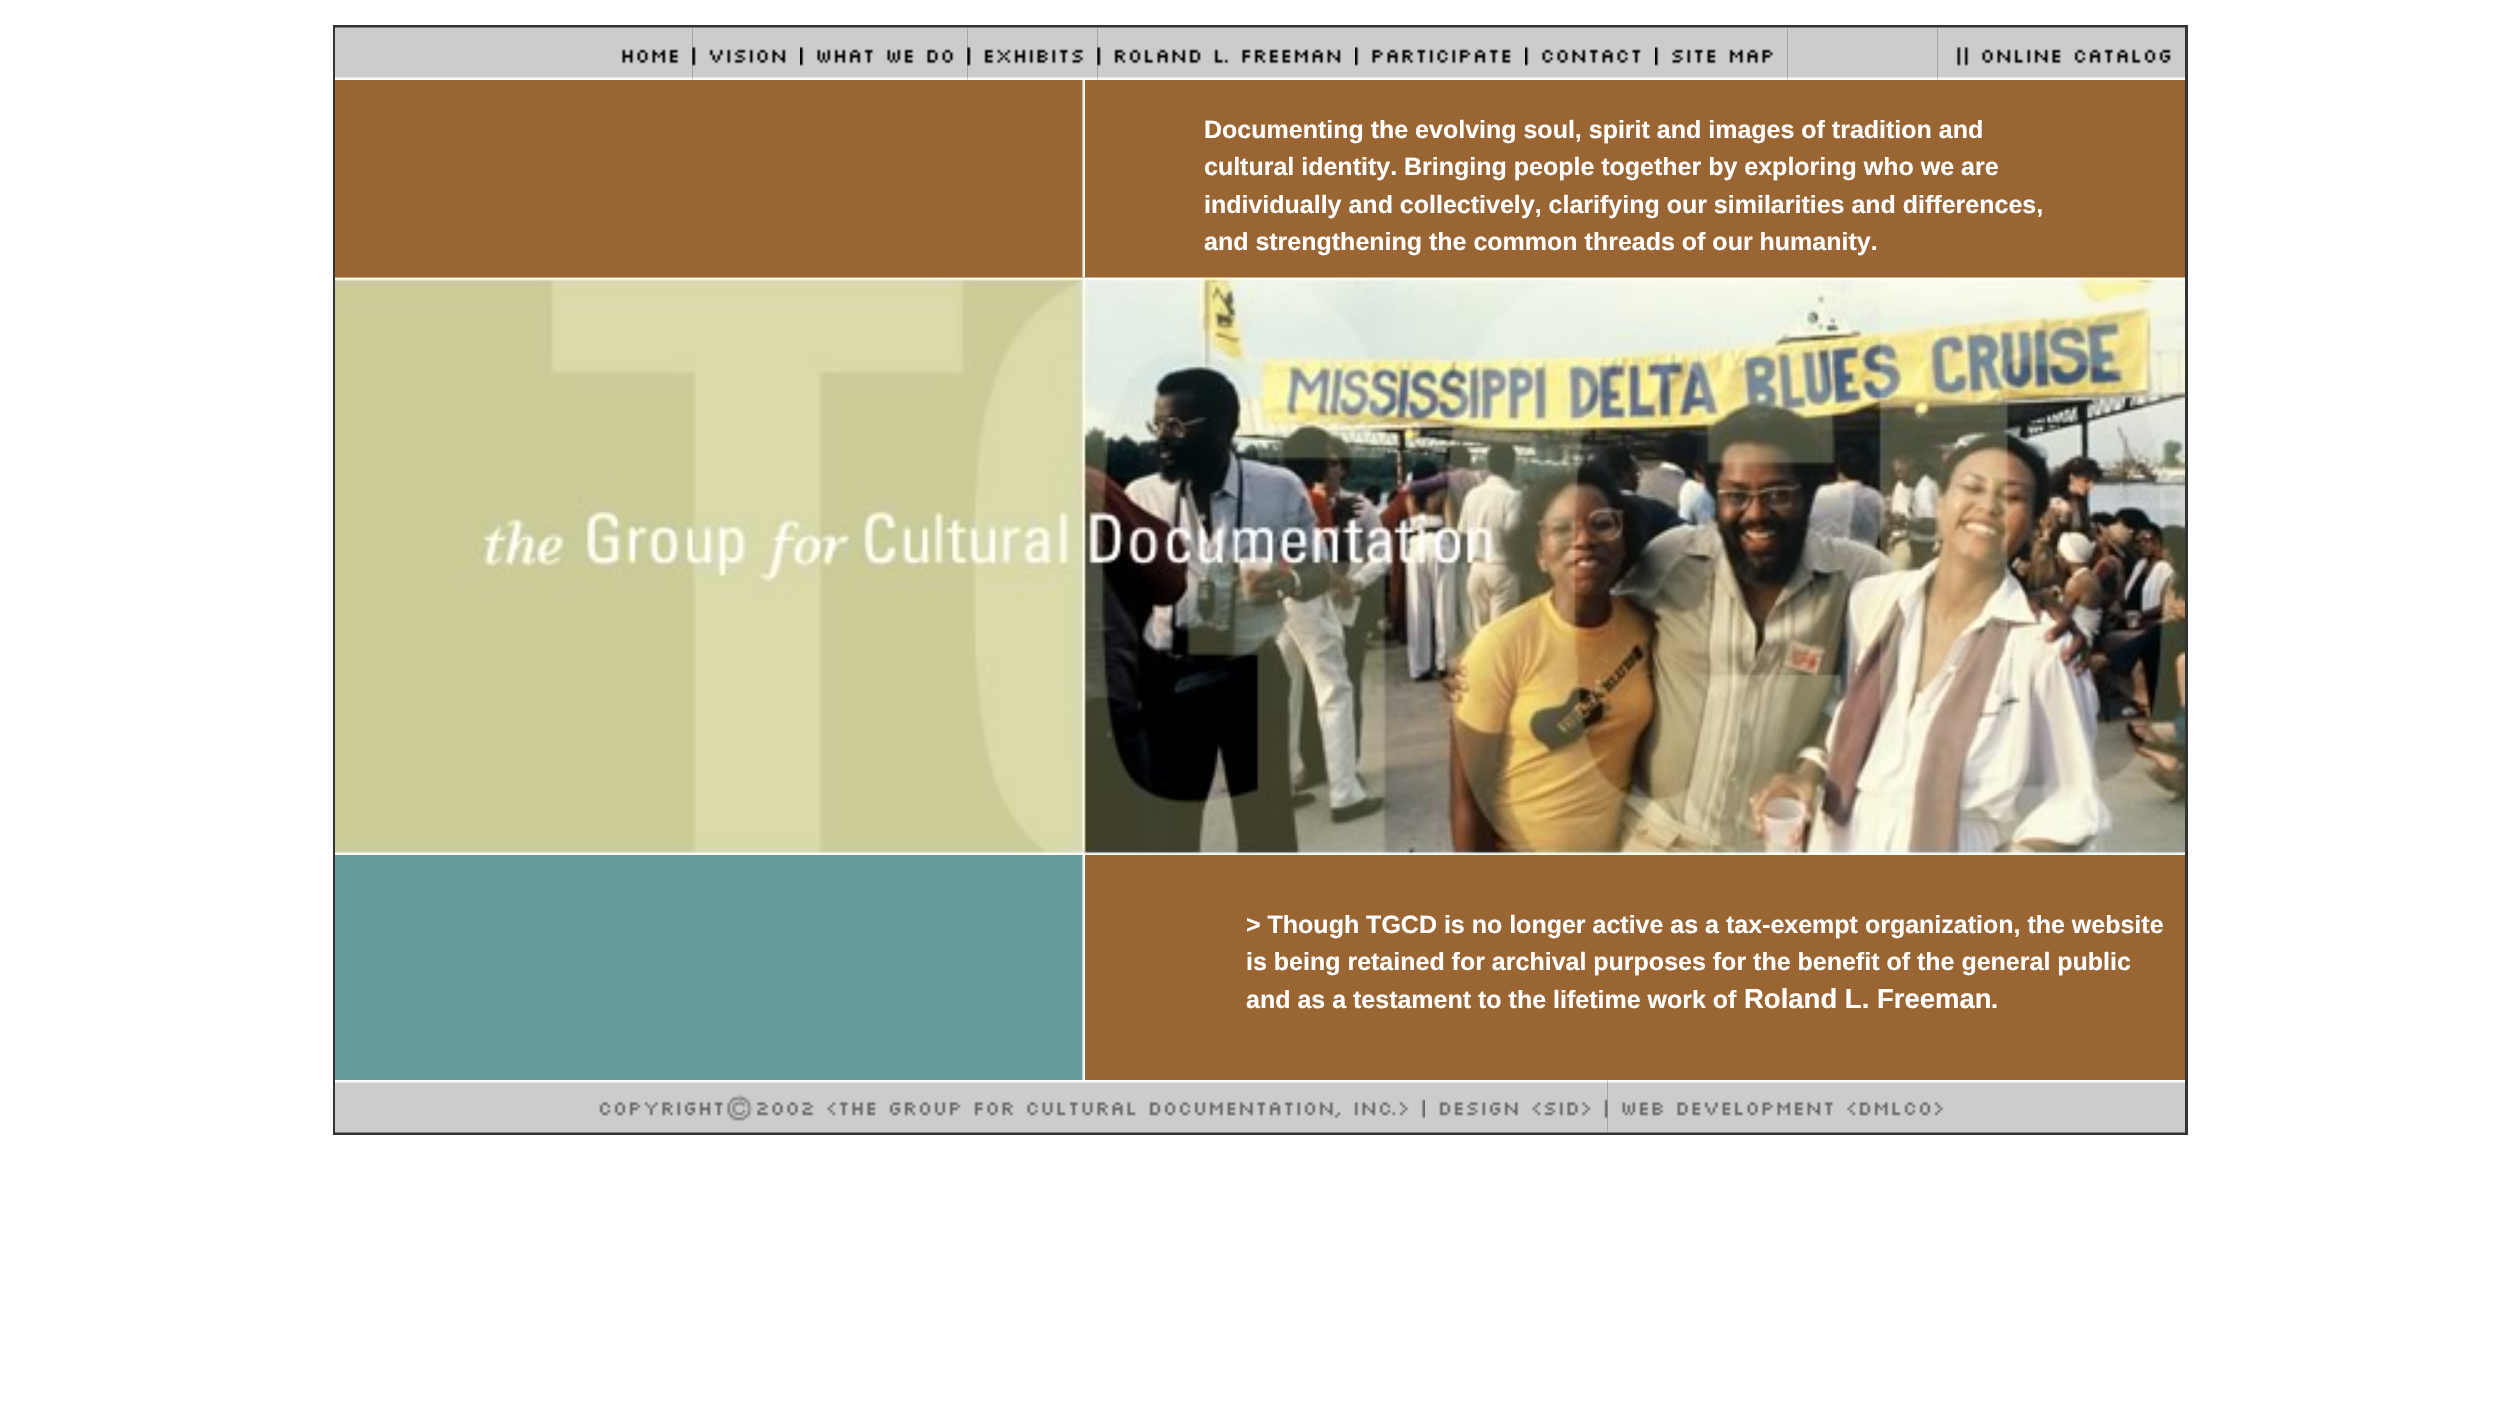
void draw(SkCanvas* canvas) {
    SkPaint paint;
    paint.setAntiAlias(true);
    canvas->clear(0xFFFFFFFF);
    paint.setColor(0xFF333333);
    canvas->drawRect(SkRect::MakeXYWH(333, 25, 1855, 1110), paint);
    canvas->drawImageRect(SkImages::DeferredFromEncodedData(SkData::MakeFromFileName("img1.png")), SkRect::MakeXYWH(335, 27, 270, 53), SkSamplingOptions());
    canvas->drawImageRect(SkImages::DeferredFromEncodedData(SkData::MakeFromFileName("img2.png")), SkRect::MakeXYWH(605, 27, 88, 53), SkSamplingOptions());
    canvas->drawImageRect(SkImages::DeferredFromEncodedData(SkData::MakeFromFileName("img3.png")), SkRect::MakeXYWH(692, 27, 108, 53), SkSamplingOptions());
    canvas->drawImageRect(SkImages::DeferredFromEncodedData(SkData::MakeFromFileName("img4.png")), SkRect::MakeXYWH(800, 27, 168, 53), SkSamplingOptions());
    canvas->drawImageRect(SkImages::DeferredFromEncodedData(SkData::MakeFromFileName("img5.png")), SkRect::MakeXYWH(967, 27, 131, 53), SkSamplingOptions());
    canvas->drawImageRect(SkImages::DeferredFromEncodedData(SkData::MakeFromFileName("img6.png")), SkRect::MakeXYWH(1097, 27, 258, 53), SkSamplingOptions());
    canvas->drawImageRect(SkImages::DeferredFromEncodedData(SkData::MakeFromFileName("img7.png")), SkRect::MakeXYWH(1355, 27, 170, 53), SkSamplingOptions());
    canvas->drawImageRect(SkImages::DeferredFromEncodedData(SkData::MakeFromFileName("img8.png")), SkRect::MakeXYWH(1525, 27, 130, 53), SkSamplingOptions());
    canvas->drawImageRect(SkImages::DeferredFromEncodedData(SkData::MakeFromFileName("img9.png")), SkRect::MakeXYWH(1655, 27, 133, 53), SkSamplingOptions());
    canvas->drawImageRect(SkImages::DeferredFromEncodedData(SkData::MakeFromFileName("img10.png")), SkRect::MakeXYWH(1787, 27, 151, 53), SkSamplingOptions());
    canvas->drawImageRect(SkImages::DeferredFromEncodedData(SkData::MakeFromFileName("img11.png")), SkRect::MakeXYWH(1937, 27, 248, 53), SkSamplingOptions());
    canvas->drawImageRect(SkImages::DeferredFromEncodedData(SkData::MakeFromFileName("img12.png")), SkRect::MakeXYWH(335, 80, 750, 198), SkSamplingOptions());
    paint.setColor(0xFF996633);
    canvas->drawRect(SkRect::MakeXYWH(1085, 80, 1100, 198), paint);
    SkFont font1(fontMgr->matchFamilyStyle("Liberation Sans", SkFontStyle::Bold()), 25);
    font1.setSubpixel(true);
    paint.setColor(0xFFFFFFFF);
    canvas->drawString("Documenting the evolving soul, spirit and images of tradition and", 1204, 138, font1, paint);
    canvas->drawString("cultural identity. Bringing people together by exploring who we are", 1204, 175, font1, paint);
    canvas->drawString("individually and collectively, clarifying our similarities and differences,", 1204, 213, font1, paint);
    canvas->drawString("and strengthening the common threads of our humanity.", 1204, 250, font1, paint);
    canvas->drawImageRect(SkImages::DeferredFromEncodedData(SkData::MakeFromFileName("img13.png")), SkRect::MakeXYWH(335, 277, 1850, 578), SkSamplingOptions());
    canvas->drawImageRect(SkImages::DeferredFromEncodedData(SkData::MakeFromFileName("img14.png")), SkRect::MakeXYWH(335, 855, 750, 225), SkSamplingOptions());
    paint.setColor(0xFF996633);
    canvas->drawRect(SkRect::MakeXYWH(1085, 855, 1100, 225), paint);
    paint.setColor(0xFFFFFFFF);
    canvas->drawString("> Though TGCD is no longer active as a tax-exempt organization, the website", 1246, 933, font1, paint);
    canvas->drawString("is being retained for archival purposes for the benefit of the general public", 1246, 970, font1, paint);
    canvas->drawString("and as a testament to the lifetime work of", 1246, 1008, font1, paint);
    SkFont font2(fontMgr->matchFamilyStyle("Liberation Sans", SkFontStyle::Bold()), 27.5f);
    font2.setSubpixel(true);
    canvas->drawString("Roland L. Freeman", 1744, 1008, font2, paint);
    canvas->drawString(".", 1991, 1008, font1, paint);
    canvas->drawImageRect(SkImages::DeferredFromEncodedData(SkData::MakeFromFileName("img15.png")), SkRect::MakeXYWH(335, 1080, 1090, 53), SkSamplingOptions());
    canvas->drawImageRect(SkImages::DeferredFromEncodedData(SkData::MakeFromFileName("img16.png")), SkRect::MakeXYWH(1425, 1080, 183, 53), SkSamplingOptions());
    canvas->drawImageRect(SkImages::DeferredFromEncodedData(SkData::MakeFromFileName("img17.png")), SkRect::MakeXYWH(1607, 1080, 578, 53), SkSamplingOptions());
}
